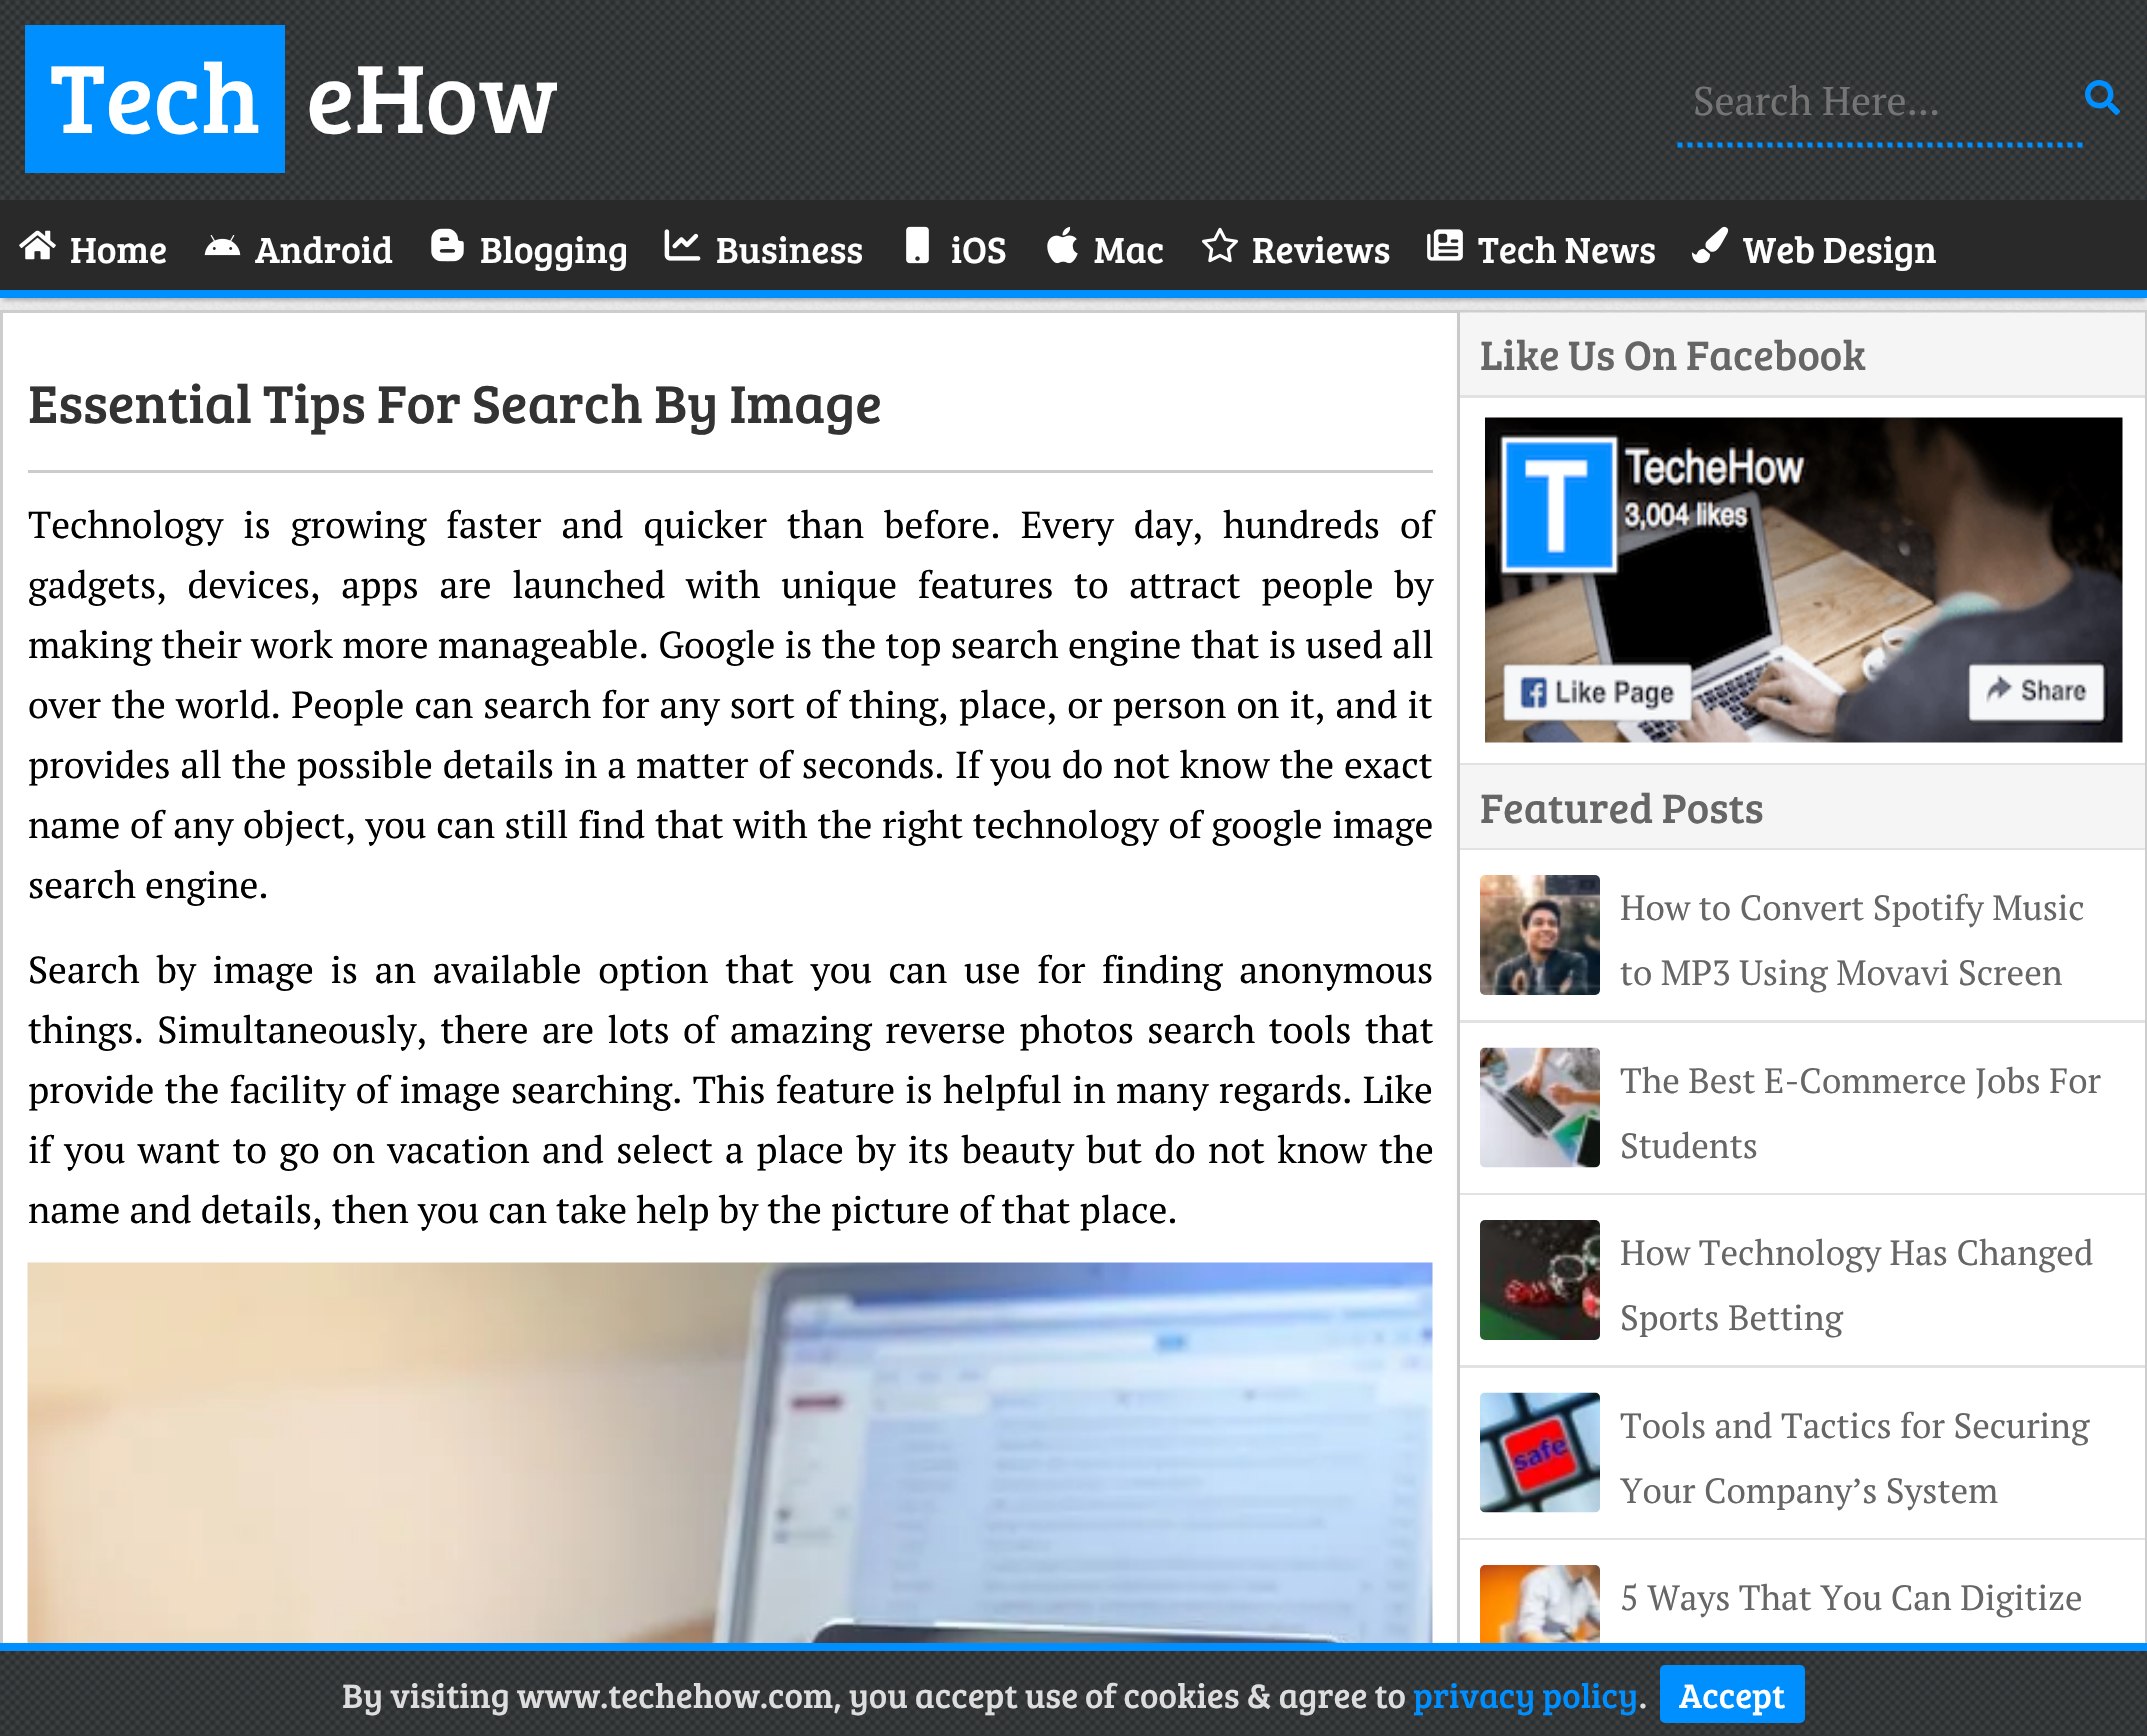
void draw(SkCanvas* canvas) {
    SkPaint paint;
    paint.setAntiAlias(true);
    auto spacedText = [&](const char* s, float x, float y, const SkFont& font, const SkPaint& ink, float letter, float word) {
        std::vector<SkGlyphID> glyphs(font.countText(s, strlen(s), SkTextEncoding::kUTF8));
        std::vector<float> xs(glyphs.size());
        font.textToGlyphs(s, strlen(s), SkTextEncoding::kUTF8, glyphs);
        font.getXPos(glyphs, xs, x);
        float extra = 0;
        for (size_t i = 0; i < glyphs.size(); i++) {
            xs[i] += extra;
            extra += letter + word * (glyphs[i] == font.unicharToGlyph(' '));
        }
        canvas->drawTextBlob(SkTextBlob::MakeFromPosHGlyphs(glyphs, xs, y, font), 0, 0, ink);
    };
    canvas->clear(0xFFFFFFFF);
    canvas->drawImageRect(SkImages::DeferredFromEncodedData(SkData::MakeFromFileName("img1.png")), SkRect::MakeXYWH(0, 298, 2147, 15), SkSamplingOptions());
    canvas->drawImageRect(SkImages::DeferredFromEncodedData(SkData::MakeFromFileName("img2.png")), SkRect::MakeXYWH(0, 0, 2147, 200), SkSamplingOptions());
    paint.setColor(0xFF008FFF);
    canvas->drawRect(SkRect::MakeXYWH(25, 25, 260, 148), paint);
    SkFont font1(fontMgr->matchFamilyStyle("Bree Serif", SkFontStyle::Normal()), 100);
    font1.setSubpixel(true);
    paint.setColor(0xFFFFFFFF);
    canvas->drawString("Tech", 50, 133, font1, paint);
    canvas->drawString("eHow", 306, 133, font1, paint);
    paint.setStyle(SkPaint::kStroke_Style);
    paint.setStrokeWidth(5);
    paint.setColor(0xFF008FFF);
    paint.setPathEffect(SkDashPathEffect::Make({{5, 5}}, 0));
    canvas->drawPath(SkPathBuilder().moveTo(1677.5f, 145).lineTo(2082.5f, 145).detach(), paint);
    paint.setPathEffect(nullptr);
    SkFont font2(fontMgr->matchFamilyStyle("PT Serif", SkFontStyle::Normal()), 40);
    font2.setSubpixel(true);
    paint.setStyle(SkPaint::kFill_Style);
    paint.setColor(0xFF757575);
    canvas->drawString("Search Here...", 1693, 115, font2, paint);
    canvas->drawImageRect(SkImages::DeferredFromEncodedData(SkData::MakeFromFileName("img3.png")), SkRect::MakeXYWH(2085, 80, 35, 35), SkSamplingOptions());
    paint.setColor(0x4D000000);
    paint.setMaskFilter(SkMaskFilter::MakeBlur(kNormal_SkBlurStyle, 2.5f));
    canvas->drawRect(SkRect::MakeXYWH(3, 208, 2142, 92), paint);
    paint.setMaskFilter(nullptr);
    paint.setColor(0xFF292929);
    canvas->drawRect(SkRect::MakeXYWH(0, 200, 2147, 90), paint);
    paint.setColor(0x1A000000);
    paint.setMaskFilter(SkMaskFilter::MakeBlur(kNormal_SkBlurStyle, 5));
    canvas->drawRect(SkRect::MakeXYWH(3, 313, 1460, 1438), paint);
    paint.setMaskFilter(nullptr);
    paint.setColor(0xFFFFFFFF);
    canvas->drawRect(SkRect::MakeXYWH(3, 313, 1454, 1330), paint);
    paint.setStyle(SkPaint::kStroke_Style);
    paint.setStrokeWidth(3);
    paint.setColor(0xFFCDCDCD);
    canvas->drawRect(SkRect::MakeXYWH(1.5f, 311.5f, 1457, 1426), paint);
    paint.setStyle(SkPaint::kFill_Style);
    paint.setColor(0x1A000000);
    paint.setMaskFilter(SkMaskFilter::MakeBlur(kNormal_SkBlurStyle, 5));
    canvas->drawRoundRect(SkRect::MakeXYWH(1463, 313, 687, 1402), 10, 10, paint);
    paint.setMaskFilter(nullptr);
    paint.setColor(0xFF008FFF);
    canvas->drawRect(SkRect::MakeXYWH(0, 290, 2147, 8), paint);
    canvas->drawImageRect(SkImages::DeferredFromEncodedData(SkData::MakeFromFileName("img4.png")), SkRect::MakeXYWH(19, 230, 37, 30), SkSamplingOptions());
    SkFont font3(fontMgr->matchFamilyStyle("Bree Serif", SkFontStyle::Normal()), 37.5f);
    font3.setSubpixel(true);
    paint.setColor(0xFFFFFFFF);
    canvas->drawString("Home", 70, 263, font3, paint);
    canvas->drawImageRect(SkImages::DeferredFromEncodedData(SkData::MakeFromFileName("img5.png")), SkRect::MakeXYWH(204, 235, 37, 21), SkSamplingOptions());
    canvas->drawString("Android", 255, 263, font3, paint);
    canvas->drawImageRect(SkImages::DeferredFromEncodedData(SkData::MakeFromFileName("img6.png")), SkRect::MakeXYWH(431, 228, 33, 34), SkSamplingOptions());
    canvas->drawString("Blogging", 480, 263, font3, paint);
    canvas->drawImageRect(SkImages::DeferredFromEncodedData(SkData::MakeFromFileName("img7.png")), SkRect::MakeXYWH(664, 229, 37, 32), SkSamplingOptions());
    canvas->drawString("Business", 716, 263, font3, paint);
    canvas->drawImageRect(SkImages::DeferredFromEncodedData(SkData::MakeFromFileName("img8.png")), SkRect::MakeXYWH(906, 226, 23, 38), SkSamplingOptions());
    canvas->drawString("iOS", 951, 263, font3, paint);
    canvas->drawImageRect(SkImages::DeferredFromEncodedData(SkData::MakeFromFileName("img9.png")), SkRect::MakeXYWH(1047, 226, 31, 38), SkSamplingOptions());
    canvas->drawString("Mac", 1094, 263, font3, paint);
    canvas->drawImageRect(SkImages::DeferredFromEncodedData(SkData::MakeFromFileName("img10.png")), SkRect::MakeXYWH(1202, 227, 36, 36), SkSamplingOptions());
    canvas->drawString("Reviews", 1252, 263, font3, paint);
    canvas->drawImageRect(SkImages::DeferredFromEncodedData(SkData::MakeFromFileName("img11.png")), SkRect::MakeXYWH(1427, 229, 36, 32), SkSamplingOptions());
    canvas->drawString("Tech News", 1478, 263, font3, paint);
    canvas->drawImageRect(SkImages::DeferredFromEncodedData(SkData::MakeFromFileName("img12.png")), SkRect::MakeXYWH(1691, 226, 38, 38), SkSamplingOptions());
    canvas->drawString("Web Design", 1743, 263, font3, paint);
    paint.setColor(0xFFCCCCCC);
    canvas->drawRect(SkRect::MakeXYWH(28, 470, 1405, 3), paint);
    SkFont font4(fontMgr->matchFamilyStyle("Bree Serif", SkFontStyle::Normal()), 55);
    font4.setSubpixel(true);
    paint.setColor(0xFF333333);
    canvas->drawString("Essential Tips For Search By Image", 28, 423, font4, paint);
    SkFont font5(fontMgr->matchFamilyStyle("PT Serif", SkFontStyle::Normal()), 37.5f);
    font5.setSubpixel(true);
    paint.setColor(0xFF000000);
    spacedText("Technology is growing faster and quicker than before. Every day, hundreds of", 28, 538, font5, paint, 0, 10.9f);
    spacedText("gadgets, devices, apps are launched with unique features to attract people by", 28, 598, font5, paint, 0, 11.5f);
    spacedText("making their work more manageable. Google is the top search engine that is used all", 28, 658, font5, paint, 0, 0.2f);
    spacedText("over the world. People can search for any sort of thing, place, or person on it, and it", 28, 718, font5, paint, 0, 1);
    spacedText("provides all the possible details in a matter of seconds. If you do not know the exact", 28, 778, font5, paint, 0, 0.75f);
    spacedText("name of any object, you can still find that with the right technology of google image", 28, 838, font5, paint, 0, 0.5f);
    canvas->drawString("search engine.", 28, 898, font5, paint);
    spacedText("Search by image is an available option that you can use for finding anonymous", 28, 983, font5, paint, 0, 7.6f);
    spacedText("things. Simultaneously, there are lots of amazing reverse photos search tools that", 28, 1043, font5, paint, 0, 4.25f);
    spacedText("provide the facility of image searching. This feature is helpful in many regards. Like", 28, 1103, font5, paint, 0, 1.1f);
    spacedText("if you want to go on vacation and select a place by its beauty but do not know the", 28, 1163, font5, paint, 0, 3.1f);
    canvas->drawString("name and details, then you can take help by the picture of that place.", 28, 1223, font5, paint);
    canvas->drawImageRect(SkImages::DeferredFromEncodedData(SkData::MakeFromFileName("img13.png")), SkRect::MakeXYWH(27, 1262, 1406, 381), SkSamplingOptions());
    paint.setColor(0xFFCDCDCD);
    canvas->drawPath(SkPathBuilder(SkPathFillType::kEvenOdd).moveTo(1460, 310).lineTo(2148, 310).lineTo(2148, 1702).cubicTo(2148, 1708, 2143, 1712, 2138, 1712).lineTo(1460, 1712).close().moveTo(1460, 312).lineTo(2145, 312).lineTo(2145, 1702).cubicTo(2145, 1707, 2142, 1710, 2138, 1710).lineTo(1460, 1710).close().detach(), paint);
    paint.setColor(0xFFFFFFFF);
    canvas->drawRect(SkRect::MakeXYWH(1460, 398, 685, 365), paint);
    paint.setColor(0xFFE2E2E2);
    canvas->drawRect(SkRect::MakeXYWH(1460, 763, 685, 2), paint);
    paint.setColor(0xFFF5F5F5);
    canvas->drawRect(SkRect::MakeXYWH(1460, 313, 685, 82), paint);
    paint.setColor(0xFFE2E2E2);
    canvas->drawRect(SkRect::MakeXYWH(1460, 395, 685, 3), paint);
    SkFont font6(fontMgr->matchFamilyStyle("Bree Serif", SkFontStyle::Normal()), 42.5f);
    font6.setSubpixel(true);
    paint.setColor(0xFF666666);
    canvas->drawString("Like Us On Facebook", 1480, 370, font6, paint);
    canvas->drawImageRect(SkImages::DeferredFromEncodedData(SkData::MakeFromFileName("img14.png")), SkRect::MakeXYWH(1485, 417, 638, 326), SkSamplingOptions());
    paint.setColor(0xFFF5F5F5);
    canvas->drawRect(SkRect::MakeXYWH(1460, 765, 685, 83), paint);
    paint.setColor(0xFFE2E2E2);
    canvas->drawRect(SkRect::MakeXYWH(1460, 848, 685, 2), paint);
    paint.setColor(0xFF666666);
    canvas->drawString("Featured Posts", 1480, 823, font6, paint);
    paint.setColor(0xFFFFFFFF);
    canvas->drawRect(SkRect::MakeXYWH(1460, 850, 685, 170), paint);
    paint.setColor(0xFFE2E2E2);
    canvas->drawRect(SkRect::MakeXYWH(1460, 1020, 685, 3), paint);
    canvas->drawImageRect(SkImages::DeferredFromEncodedData(SkData::MakeFromFileName("img15.png")), SkRect::MakeXYWH(1480, 875, 120, 120), SkSamplingOptions());
    SkFont font7(fontMgr->matchFamilyStyle("PT Serif", SkFontStyle::Normal()), 35);
    font7.setSubpixel(true);
    paint.setColor(0xFF666666);
    canvas->drawString("How to Convert Spotify Music", 1620, 920, font7, paint);
    canvas->drawString("to MP3 Using Movavi Screen", 1620, 985, font7, paint);
    paint.setColor(0xFFFFFFFF);
    canvas->drawRect(SkRect::MakeXYWH(1460, 1023, 685, 170), paint);
    paint.setColor(0xFFE2E2E2);
    canvas->drawRect(SkRect::MakeXYWH(1460, 1193, 685, 2), paint);
    canvas->drawImageRect(SkImages::DeferredFromEncodedData(SkData::MakeFromFileName("img16.png")), SkRect::MakeXYWH(1480, 1047, 120, 121), SkSamplingOptions());
    paint.setColor(0xFF666666);
    canvas->drawString("The Best E-Commerce Jobs For", 1620, 1093, font7, paint);
    canvas->drawString("Students", 1620, 1158, font7, paint);
    paint.setColor(0xFFFFFFFF);
    canvas->drawRect(SkRect::MakeXYWH(1460, 1195, 685, 170), paint);
    paint.setColor(0xFFE2E2E2);
    canvas->drawRect(SkRect::MakeXYWH(1460, 1365, 685, 3), paint);
    canvas->drawImageRect(SkImages::DeferredFromEncodedData(SkData::MakeFromFileName("img17.png")), SkRect::MakeXYWH(1480, 1220, 120, 120), SkSamplingOptions());
    paint.setColor(0xFF666666);
    canvas->drawString("How Technology Has Changed", 1620, 1265, font7, paint);
    canvas->drawString("Sports Betting", 1620, 1330, font7, paint);
    paint.setColor(0xFFFFFFFF);
    canvas->drawRect(SkRect::MakeXYWH(1460, 1368, 685, 170), paint);
    paint.setColor(0xFFE2E2E2);
    canvas->drawRect(SkRect::MakeXYWH(1460, 1538, 685, 2), paint);
    canvas->drawImageRect(SkImages::DeferredFromEncodedData(SkData::MakeFromFileName("img18.png")), SkRect::MakeXYWH(1480, 1392, 120, 121), SkSamplingOptions());
    paint.setColor(0xFF666666);
    canvas->drawString("Tools and Tactics for Securing", 1620, 1438, font7, paint);
    canvas->drawString("Your Company’s System", 1620, 1503, font7, paint);
    paint.setColor(0xFFFFFFFF);
    canvas->drawRect(SkRect::MakeXYWH(1460, 1540, 685, 103), paint);
    canvas->drawImageRect(SkImages::DeferredFromEncodedData(SkData::MakeFromFileName("img19.png")), SkRect::MakeXYWH(1480, 1565, 120, 78), SkSamplingOptions());
    paint.setColor(0xFF666666);
    canvas->drawString("5 Ways That You Can Digitize", 1620, 1610, font7, paint);
    canvas->drawImageRect(SkImages::DeferredFromEncodedData(SkData::MakeFromFileName("img20.png")), SkRect::MakeXYWH(0, 1651, 2147, 85), SkSamplingOptions());
    paint.setColor(0xFF008FFF);
    canvas->drawRect(SkRect::MakeXYWH(0, 1643, 2147, 8), paint);
    SkFont font8(fontMgr->matchFamilyStyle("Bree Serif", SkFontStyle::Normal()), 35);
    font8.setSubpixel(true);
    paint.setColor(0xFFDDDDDD);
    canvas->drawString("By visiting www.techehow.com, you accept use of cookies & agree to", 342, 1708, font8, paint);
    paint.setColor(0xFF008FFF);
    canvas->drawString("privacy policy", 1413, 1708, font8, paint);
    paint.setColor(0xFFDDDDDD);
    canvas->drawString(".", 1639, 1708, font8, paint);
    paint.setColor(0xFF008FFF);
    canvas->drawRoundRect(SkRect::MakeXYWH(1660, 1665, 145, 58), 5, 5, paint);
    paint.setColor(0xFFFFFFFF);
    canvas->drawString("Accept", 1679, 1708, font8, paint);
}
